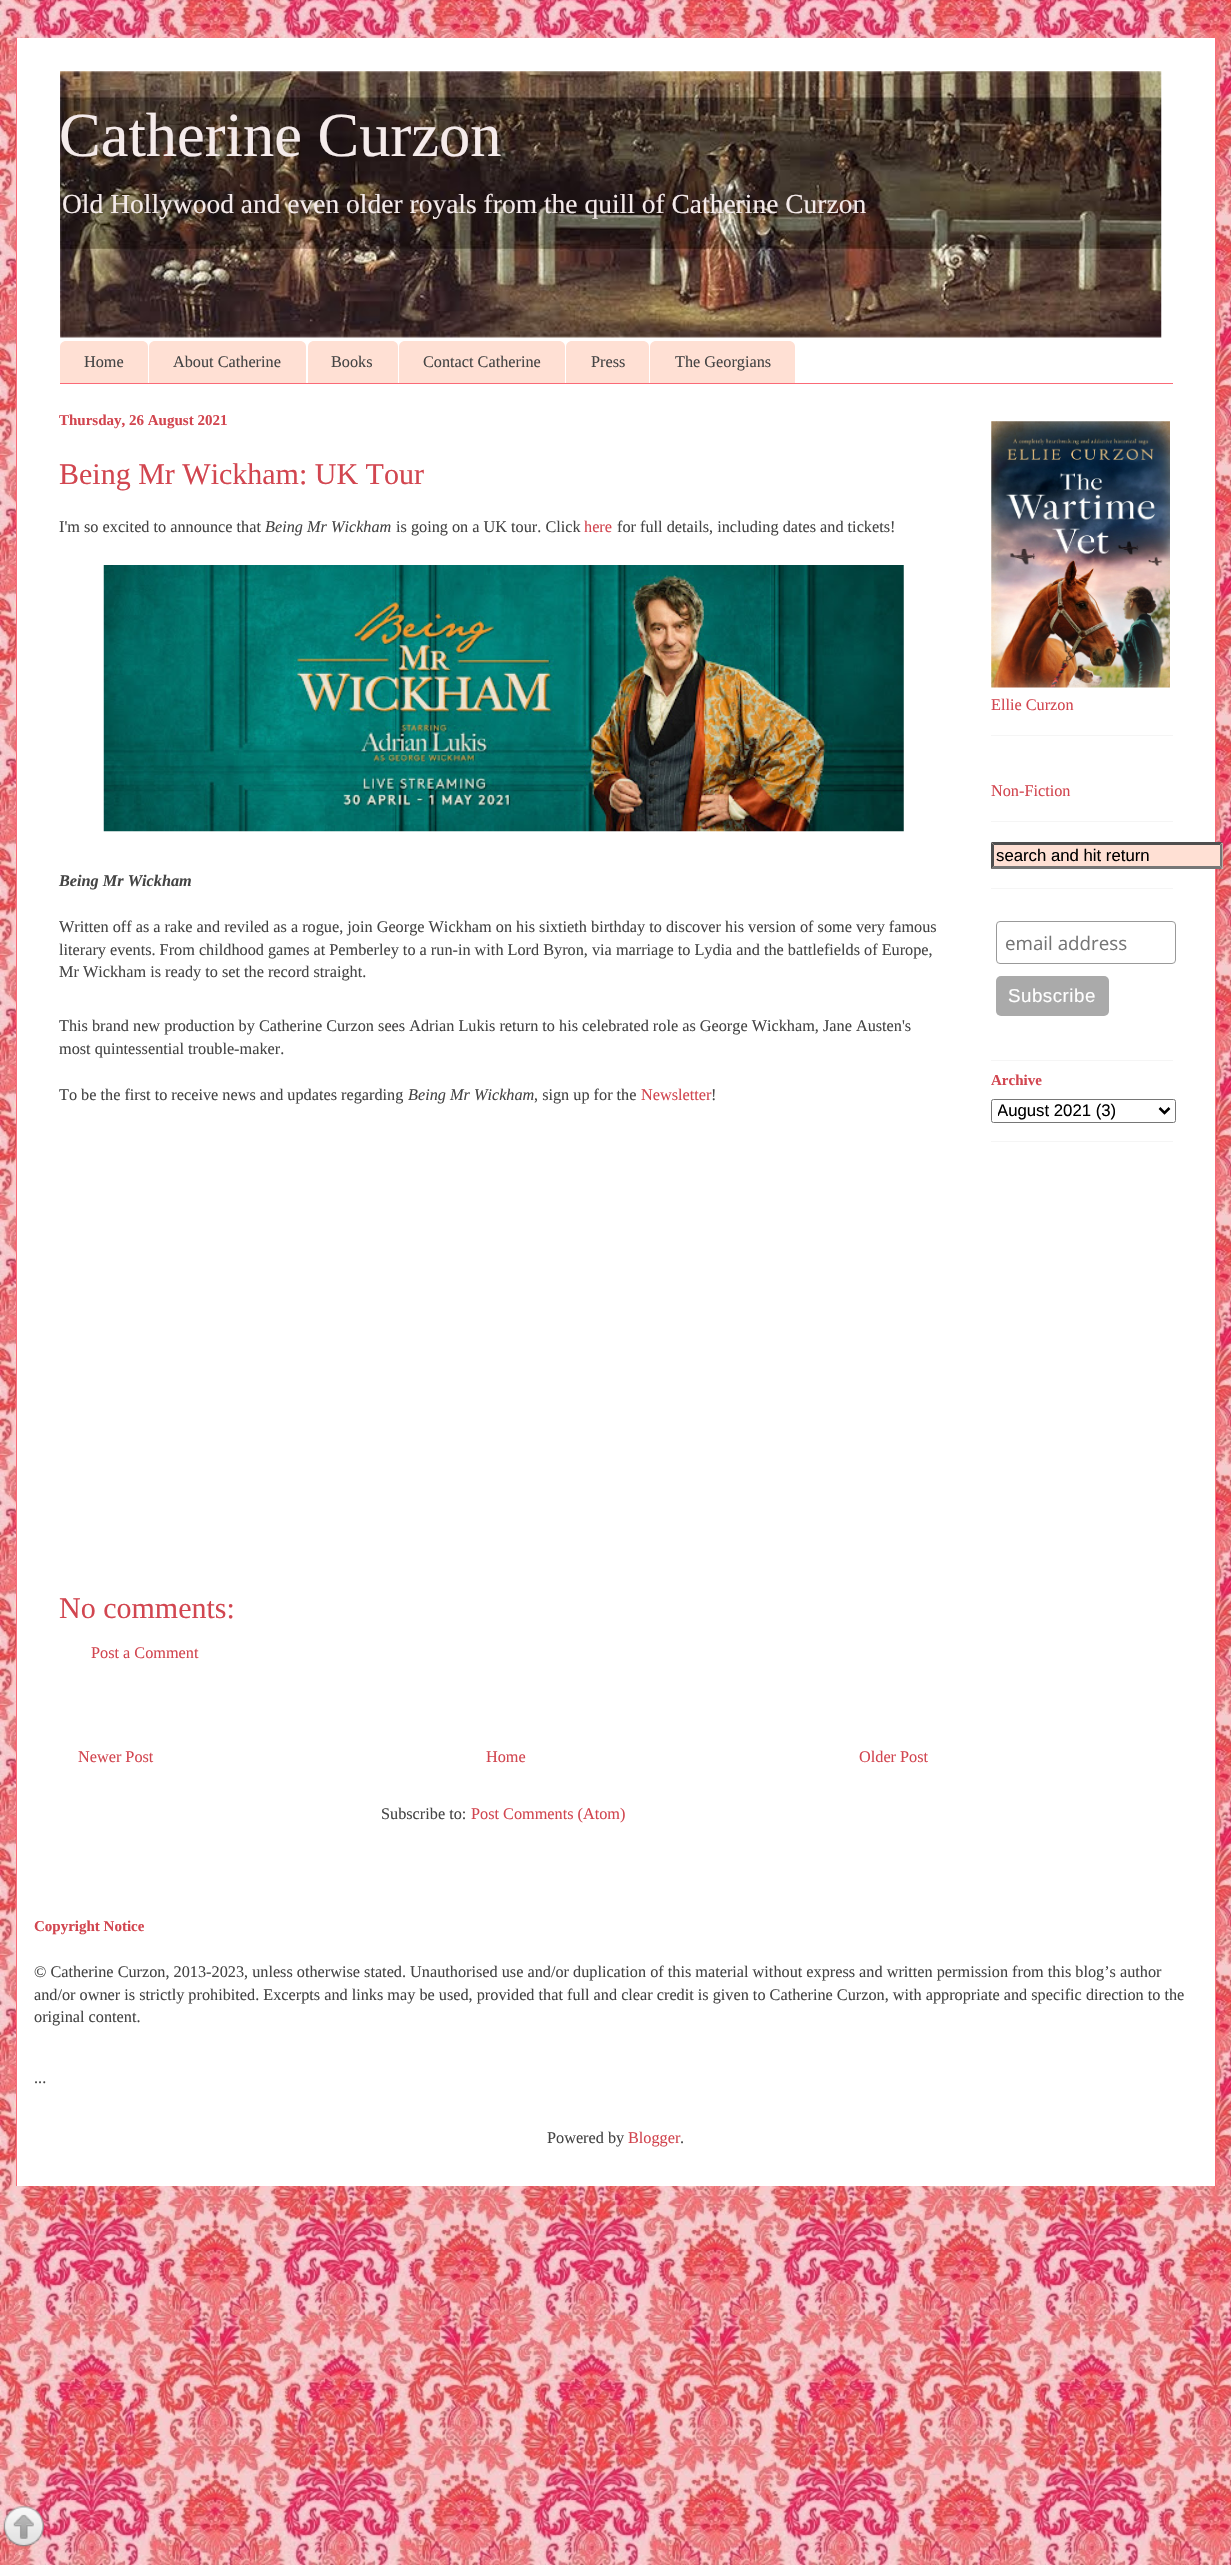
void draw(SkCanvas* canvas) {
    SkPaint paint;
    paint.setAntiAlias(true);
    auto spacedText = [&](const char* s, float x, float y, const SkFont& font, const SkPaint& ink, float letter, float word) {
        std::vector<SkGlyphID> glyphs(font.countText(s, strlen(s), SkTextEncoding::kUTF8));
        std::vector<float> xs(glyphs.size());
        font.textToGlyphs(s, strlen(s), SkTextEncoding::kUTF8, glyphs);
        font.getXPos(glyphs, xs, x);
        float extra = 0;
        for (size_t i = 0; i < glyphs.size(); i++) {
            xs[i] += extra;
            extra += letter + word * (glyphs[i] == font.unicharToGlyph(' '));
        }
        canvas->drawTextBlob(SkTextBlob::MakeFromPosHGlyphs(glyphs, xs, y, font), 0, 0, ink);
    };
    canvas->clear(0xFFFFFFFF);
    canvas->drawImageRect(SkImages::DeferredFromEncodedData(SkData::MakeFromFileName("img1.png")), SkRect::MakeXYWH(0, 0, 1231, 2565), SkSamplingOptions());
    paint.setColor(0xFFFFFFFF);
    canvas->drawRect(SkRect::MakeXYWH(17, 38, 1198, 2148), paint);
    paint.setColor(0xFFFB6A77);
    canvas->drawRect(SkRect::MakeXYWH(1215, 38, 1, 2148), paint);
    canvas->drawRect(SkRect::MakeXYWH(16, 38, 1, 2148), paint);
    canvas->drawImageRect(SkImages::DeferredFromEncodedData(SkData::MakeFromFileName("img2.png")), SkRect::MakeXYWH(60, 71, 1102, 267), SkSamplingOptions());
    SkFont font1(fontMgr->matchFamilyStyle("Liberation Serif", SkFontStyle::Normal()), 62.5f);
    font1.setSubpixel(true);
    paint.setColor(0xFFF5EBEB);
    canvas->drawString("Catherine Curzon", 59, 156, font1, paint);
    SkFont font2(fontMgr->matchFamilyStyle("Liberation Serif", SkFontStyle::Normal()), 27.5f);
    font2.setSubpixel(true);
    canvas->drawString("Old Hollywood and even older royals from the quill of Catherine Curzon", 62, 213, font2, paint);
    paint.setColor(0xFFFB6A77);
    canvas->drawRect(SkRect::MakeXYWH(60, 383, 1113, 1), paint);
    paint.setColor(0xFFFFE0D4);
    canvas->drawPath(SkPathBuilder().moveTo(66, 341).lineTo(142, 341).cubicTo(145.5f, 341, 148, 343.5f, 148, 347).lineTo(148, 383).lineTo(60, 383).lineTo(60, 347).cubicTo(60, 343.5f, 62.5f, 341, 66, 341).close().detach(), paint);
    SkFont font3(fontMgr->matchFamilyStyle("Liberation Serif", SkFontStyle::Normal()), 16.25f);
    font3.setSubpixel(true);
    paint.setColor(0xFF454545);
    canvas->drawString("Home", 84, 367, font3, paint);
    paint.setColor(0xFFFFE0D4);
    canvas->drawPath(SkPathBuilder().moveTo(155, 341).lineTo(300, 341).cubicTo(303.5f, 341, 306, 343.5f, 306, 347).lineTo(306, 383).lineTo(149, 383).lineTo(149, 347).cubicTo(149, 343.5f, 151.5f, 341, 155, 341).close().detach(), paint);
    paint.setColor(0xFF454545);
    canvas->drawString("About Catherine", 173, 367, font3, paint);
    paint.setColor(0xFFFFE0D4);
    canvas->drawPath(SkPathBuilder().moveTo(314, 341).lineTo(392, 341).cubicTo(395.5f, 341, 398, 343.5f, 398, 347).lineTo(398, 383).lineTo(308, 383).lineTo(308, 347).cubicTo(308, 343.5f, 310.5f, 341, 314, 341).close().detach(), paint);
    paint.setColor(0xFF454545);
    canvas->drawString("Books", 331, 367, font3, paint);
    paint.setColor(0xFFFFE0D4);
    canvas->drawPath(SkPathBuilder().moveTo(405, 341).lineTo(559, 341).cubicTo(562.5f, 341, 565, 343.5f, 565, 347).lineTo(565, 383).lineTo(399, 383).lineTo(399, 347).cubicTo(399, 343.5f, 401.5f, 341, 405, 341).close().detach(), paint);
    paint.setColor(0xFF454545);
    canvas->drawString("Contact Catherine", 423, 367, font3, paint);
    paint.setColor(0xFFFFE0D4);
    canvas->drawPath(SkPathBuilder().moveTo(572, 341).lineTo(643, 341).cubicTo(646.5f, 341, 649, 343.5f, 649, 347).lineTo(649, 383).lineTo(566, 383).lineTo(566, 347).cubicTo(566, 343.5f, 568.5f, 341, 572, 341).close().detach(), paint);
    paint.setColor(0xFF454545);
    canvas->drawString("Press", 591, 367, font3, paint);
    paint.setColor(0xFFFFE0D4);
    canvas->drawPath(SkPathBuilder().moveTo(656, 341).lineTo(789, 341).cubicTo(792.5f, 341, 795, 343.5f, 795, 347).lineTo(795, 383).lineTo(650, 383).lineTo(650, 347).cubicTo(650, 343.5f, 652.5f, 341, 656, 341).close().detach(), paint);
    paint.setColor(0xFF454545);
    canvas->drawString("The Georgians", 675, 367, font3, paint);
    SkFont font4(fontMgr->matchFamilyStyle("Liberation Serif", SkFontStyle::Bold()), 15);
    font4.setSubpixel(true);
    paint.setColor(0xFFD24650);
    canvas->drawString("Thursday, 26 August 2021", 59, 425, font4, paint);
    SkFont font5(fontMgr->matchFamilyStyle("Liberation Serif", SkFontStyle::Normal()), 30);
    font5.setSubpixel(true);
    canvas->drawString("Being Mr Wickham: UK Tour", 59, 484, font5, paint);
    paint.setColor(0xFF454545);
    canvas->drawString("I'm so excited to announce that", 59, 532, font3, paint);
    SkFont font6(fontMgr->matchFamilyStyle("Liberation Serif", SkFontStyle::Italic()), 16.25f);
    font6.setSubpixel(true);
    canvas->drawString("Being Mr Wickham", 265, 532, font6, paint);
    canvas->drawString("is going on a UK tour. Click", 396, 532, font3, paint);
    paint.setColor(0xFFD24650);
    canvas->drawString("here", 584, 532, font3, paint);
    paint.setColor(0xFF454545);
    canvas->drawString("for full details, including dates and tickets!", 617, 532, font3, paint);
    canvas->drawImageRect(SkImages::DeferredFromEncodedData(SkData::MakeFromFileName("img3.png")), SkRect::MakeXYWH(103, 565, 801, 267), SkSamplingOptions());
    SkFont font7(fontMgr->matchFamilyStyle("Liberation Serif", SkFontStyle::BoldItalic()), 16.25f);
    font7.setSubpixel(true);
    canvas->drawString("Being Mr Wickham", 59, 886, font7, paint);
    canvas->drawString("Written off as a rake and reviled as a rogue, join George Wickham on his sixtieth birthday to discover his version of some very famous", 59, 932, font3, paint);
    canvas->drawString("literary events. From childhood games at Pemberley to a run-in with Lord Byron, via marriage to Lydia and the battlefields of Europe,", 59, 955, font3, paint);
    canvas->drawString("Mr Wickham is ready to set the record straight.", 59, 977, font3, paint);
    canvas->drawString("This brand new production by Catherine Curzon sees Adrian Lukis return to his celebrated role as George Wickham, Jane Austen's", 59, 1031, font3, paint);
    canvas->drawString("most quintessential trouble-maker.", 59, 1054, font3, paint);
    canvas->drawString("To be the first to receive news and updates regarding", 59, 1100, font3, paint);
    canvas->drawString("Being Mr Wickham", 408, 1100, font6, paint);
    canvas->drawString(", sign up for the", 534, 1100, font3, paint);
    paint.setColor(0xFFD24650);
    canvas->drawString("Newsletter", 641, 1100, font3, paint);
    paint.setColor(0xFF454545);
    canvas->drawString("!", 711, 1100, font3, paint);
    paint.setColor(0xFFD24650);
    canvas->drawString("No comments:", 59, 1618, font5, paint);
    canvas->drawString("Post a Comment", 91, 1658, font3, paint);
    canvas->drawString("Newer Post", 78, 1762, font3, paint);
    canvas->drawString("Home", 486, 1762, font3, paint);
    canvas->drawString("Older Post", 859, 1762, font3, paint);
    paint.setColor(0xFF454545);
    canvas->drawString("Subscribe to:", 381, 1819, font3, paint);
    paint.setColor(0xFFD24650);
    canvas->drawString("Post Comments (Atom)", 471, 1819, font3, paint);
    paint.setColor(0xFFF5F5F5);
    canvas->drawRect(SkRect::MakeXYWH(991, 735, 182, 1), paint);
    canvas->drawImageRect(SkImages::DeferredFromEncodedData(SkData::MakeFromFileName("img4.png")), SkRect::MakeXYWH(991, 421, 179, 267), SkSamplingOptions());
    paint.setColor(0xFFD24650);
    canvas->drawString("Ellie Curzon", 991, 710, font3, paint);
    paint.setColor(0xFFF5F5F5);
    canvas->drawRect(SkRect::MakeXYWH(991, 821, 182, 1), paint);
    paint.setColor(0xFFD24650);
    canvas->drawString("Non-Fiction", 991, 796, font3, paint);
    paint.setColor(0xFFF5F5F5);
    canvas->drawRect(SkRect::MakeXYWH(991, 888, 182, 1), paint);
    paint.setColor(0xFFFFE0D4);
    canvas->drawRect(SkRect::MakeXYWH(991, 843, 232, 26), paint);
    paint.setColor(0xFF4F4F4F);
    canvas->drawPath(SkPathBuilder().moveTo(991, 842).lineTo(1222, 842).lineTo(1220, 845).lineTo(994, 845).close().detach(), paint);
    paint.setColor(0xFF767676);
    canvas->drawPath(SkPathBuilder().moveTo(1222.5f, 842.5f).lineTo(1222.5f, 869).lineTo(1220, 866).lineTo(1220, 845).close().detach(), paint);
    canvas->drawPath(SkPathBuilder().moveTo(1222, 869).lineTo(991, 869).lineTo(994, 866).lineTo(1220, 866).close().detach(), paint);
    paint.setColor(0xFF4F4F4F);
    canvas->drawPath(SkPathBuilder().moveTo(991, 869).lineTo(991, 842.5f).lineTo(994, 845).lineTo(994, 866).close().detach(), paint);
    SkFont font8(fontMgr->matchFamilyStyle("Liberation Sans", SkFontStyle::Normal()), 16.75f);
    font8.setSubpixel(true);
    paint.setColor(0xFF000000);
    canvas->drawString("search and hit return", 996, 861, font8, paint);
    paint.setColor(0xFFF5F5F5);
    canvas->drawRect(SkRect::MakeXYWH(991, 1060, 182, 1), paint);
    paint.setStyle(SkPaint::kStroke_Style);
    paint.setStrokeWidth(1);
    paint.setColor(0xFF999999);
    canvas->drawRoundRect(SkRect::MakeXYWH(996.5f, 921.5f, 179, 42), 3.5f, 3.5f, paint);
    SkFont font9(fontMgr->matchFamilyStyle("Open Sans", SkFontStyle::Normal()), 18.75f);
    font9.setSubpixel(true);
    paint.setStyle(SkPaint::kFill_Style);
    paint.setColor(0xFF757575);
    canvas->drawString("email address", 1005, 950, font9, paint);
    paint.setColor(0xFFAAAAAA);
    canvas->drawRoundRect(SkRect::MakeXYWH(996, 976, 113, 40), 5, 5, paint);
    SkFont font10(fontMgr->matchFamilyStyle("Liberation Sans", SkFontStyle::Normal()), 18.75f);
    font10.setSubpixel(true);
    paint.setColor(0xFFFFFFFF);
    spacedText("Subscribe", 1008, 1002, font10, paint, 0.5f, 0);
    paint.setColor(0xFFF5F5F5);
    canvas->drawRect(SkRect::MakeXYWH(991, 1141, 182, 1), paint);
    paint.setColor(0xFFD24650);
    canvas->drawString("Archive", 991, 1085, font4, paint);
    paint.setStyle(SkPaint::kStroke_Style);
    paint.setColor(0xFF767676);
    canvas->drawRoundRect(SkRect::MakeXYWH(991.5f, 1099.5f, 184, 23), 2, 2, paint);
    paint.setStrokeWidth(2.5f);
    paint.setColor(0xFF000000);
    canvas->drawPath(SkPathBuilder().moveTo(1159.5f, 1108).lineTo(1164.5f, 1113).lineTo(1169.5f, 1108).detach(), paint);
    canvas->save();
    canvas->clipRect(SkRect::MakeXYWH(998, 1100, 157, 21));
    paint.setStyle(SkPaint::kFill_Style);
    canvas->drawString("August 2021 (3)", 997, 1116, font8, paint);
    canvas->restore();
    paint.setColor(0xFFD24650);
    canvas->drawString("Copyright Notice", 34, 1931, font4, paint);
    paint.setColor(0xFF454545);
    canvas->drawString("© Catherine Curzon, 2013-2023, unless otherwise stated. Unauthorised use and/or duplication of this material without express and written permission from this blog’s author", 34, 1977, font3, paint);
    canvas->drawString("and/or owner is strictly prohibited. Excerpts and links may be used, provided that full and clear credit is given to Catherine Curzon, with appropriate and specific direction to the", 34, 2000, font3, paint);
    canvas->drawString("original content.", 34, 2022, font3, paint);
    canvas->drawString("...", 34, 2083, font3, paint);
    canvas->drawImageRect(SkImages::DeferredFromEncodedData(SkData::MakeFromFileName("img5.png")), SkRect::MakeXYWH(3, 2506, 41, 41), SkSamplingOptions());
    canvas->drawString("Powered by", 547, 2143, font3, paint);
    paint.setColor(0xFFD24650);
    canvas->drawString("Blogger", 628, 2143, font3, paint);
    paint.setColor(0xFF454545);
    canvas->drawString(".", 680, 2143, font3, paint);
}
